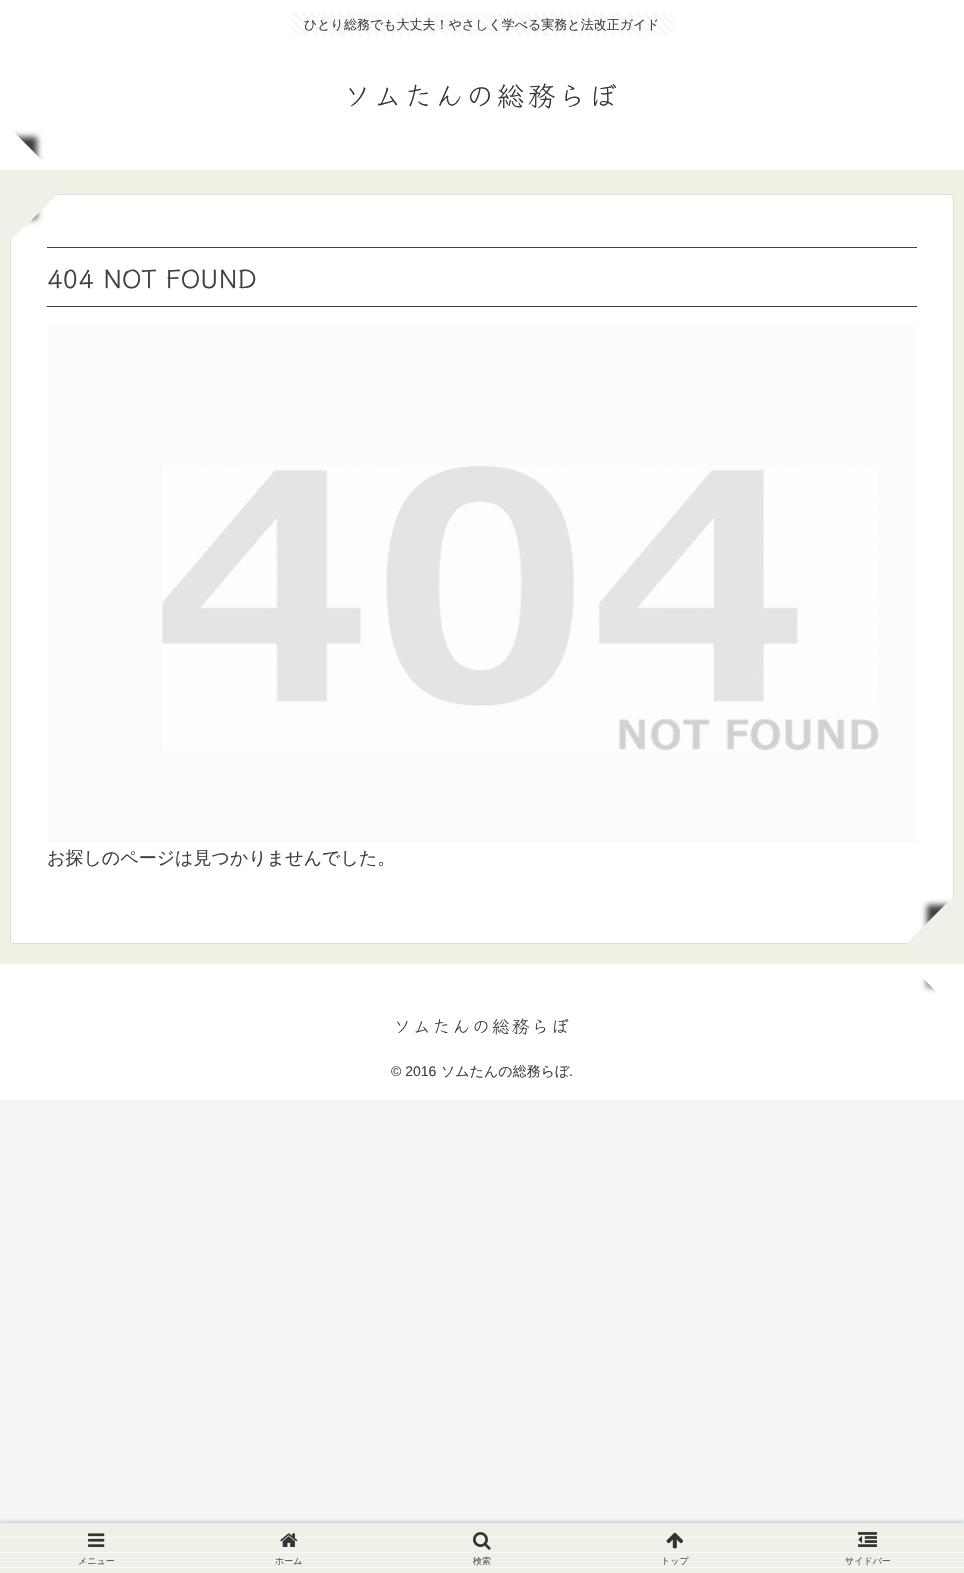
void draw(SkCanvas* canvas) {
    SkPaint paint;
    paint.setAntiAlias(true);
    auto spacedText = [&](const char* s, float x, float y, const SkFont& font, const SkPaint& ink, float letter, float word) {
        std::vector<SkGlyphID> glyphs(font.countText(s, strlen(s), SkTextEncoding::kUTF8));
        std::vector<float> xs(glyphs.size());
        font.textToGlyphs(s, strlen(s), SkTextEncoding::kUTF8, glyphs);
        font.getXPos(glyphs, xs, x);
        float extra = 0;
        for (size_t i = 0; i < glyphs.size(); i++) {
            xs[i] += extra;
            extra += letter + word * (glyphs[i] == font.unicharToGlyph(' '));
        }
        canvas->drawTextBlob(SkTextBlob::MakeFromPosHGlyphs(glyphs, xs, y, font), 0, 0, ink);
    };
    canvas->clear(0xFFF4F5F7);
    paint.setColor(0xFFF0F0E5);
    canvas->drawRect(SkRect::MakeXYWH(0, 170, 964, 794), paint);
    paint.setColor(0xFFFFFFFF);
    canvas->drawRect(SkRect::MakeXYWH(0, 0, 964, 170), paint);
    {
        const SkColor colors[] = {0xFFF7F7F7, 0xFFF7F7F7, 0xFFFFFFFF, 0xFFFFFFFF, 0xFFF7F7F7, 0xFFF7F7F7, 0xFFFFFFFF, 0xFFFFFFFF, 0xFFF7F7F7, 0xFFF7F7F7, 0xFFFFFFFF, 0xFFFFFFFF, 0xFFF7F7F7, 0xFFF7F7F7, 0xFFFFFFFF, 0xFFFFFFFF, 0xFFF7F7F7, 0xFFF7F7F7, 0xFFFFFFFF, 0xFFFFFFFF, 0xFFF7F7F7, 0xFFF7F7F7, 0xFFFFFFFF, 0xFFFFFFFF, 0xFFF7F7F7, 0xFFF7F7F7, 0xFFFFFFFF, 0xFFFFFFFF, 0xFFF7F7F7, 0xFFF7F7F7, 0xFFFFFFFF, 0xFFFFFFFF, 0xFFF7F7F7, 0xFFF7F7F7, 0xFFFFFFFF, 0xFFFFFFFF, 0xFFF7F7F7, 0xFFF7F7F7, 0xFFFFFFFF, 0xFFFFFFFF, 0xFFF7F7F7, 0xFFF7F7F7, 0xFFFFFFFF, 0xFFFFFFFF, 0xFFF7F7F7, 0xFFF7F7F7, 0xFFFFFFFF, 0xFFFFFFFF, 0xFFF7F7F7, 0xFFF7F7F7, 0xFFFFFFFF, 0xFFFFFFFF, 0xFFF7F7F7, 0xFFF7F7F7, 0xFFFFFFFF, 0xFFFFFFFF, 0xFFF7F7F7, 0xFFF7F7F7, 0xFFFFFFFF, 0xFFFFFFFF, 0xFFF7F7F7, 0xFFF7F7F7, 0xFFFFFFFF, 0xFFFFFFFF, 0xFFF7F7F7, 0xFFF7F7F7, 0xFFFFFFFF, 0xFFFFFFFF, 0xFFF7F7F7, 0xFFF7F7F7, 0xFFFFFFFF, 0xFFFFFFFF, 0xFFF7F7F7, 0xFFF7F7F7, 0xFFFFFFFF, 0xFFFFFFFF, 0xFFF7F7F7, 0xFFF7F7F7, 0xFFFFFFFF, 0xFFFFFFFF, 0xFFF7F7F7, 0xFFF7F7F7, 0xFFFFFFFF, 0xFFFFFFFF, 0xFFF7F7F7, 0xFFF7F7F7, 0xFFFFFFFF, 0xFFFFFFFF, 0xFFF7F7F7, 0xFFF7F7F7, 0xFFFFFFFF, 0xFFFFFFFF, 0xFFF7F7F7, 0xFFF7F7F7, 0xFFFFFFFF, 0xFFFFFFFF, 0xFFF7F7F7, 0xFFF7F7F7, 0xFFFFFFFF, 0xFFFFFFFF, 0xFFF7F7F7, 0xFFF7F7F7, 0xFFFFFFFF, 0xFFFFFFFF, 0xFFF7F7F7, 0xFFF7F7F7, 0xFFFFFFFF, 0xFFFFFFFF, 0xFFF7F7F7, 0xFFF7F7F7, 0xFFFFFFFF, 0xFFFFFFFF, 0xFFF7F7F7, 0xFFF7F7F7, 0xFFFFFFFF, 0xFFFFFFFF, 0xFFF7F7F7, 0xFFF7F7F7, 0xFFFFFFFF, 0xFFFFFFFF, 0xFFF7F7F7, 0xFFF7F7F7, 0xFFFFFFFF, 0xFFFFFFFF, 0xFFF7F7F7, 0xFFF7F7F7, 0xFFFFFFFF, 0xFFFFFFFF, 0xFFF7F7F7, 0xFFF7F7F7, 0xFFFFFFFF, 0xFFFFFFFF, 0xFFF7F7F7, 0xFFF7F7F7, 0xFFFFFFFF, 0xFFFFFFFF, 0xFFF7F7F7, 0xFFF7F7F7, 0xFFFFFFFF, 0xFFFFFFFF, 0xFFF7F7F7, 0xFFF7F7F7, 0xFFFFFFFF, 0xFFFFFFFF, 0xFFF7F7F7, 0xFFF7F7F7, 0xFFFFFFFF, 0xFFFFFFFF, 0xFFF7F7F7, 0xFFF7F7F7, 0xFFFFFFFF, 0xFFFFFFFF, 0xFFF7F7F7, 0xFFF7F7F7, 0xFFFFFFFF, 0xFFFFFFFF, 0xFFF7F7F7, 0xFFF7F7F7, 0xFFFFFFFF, 0xFFFFFFFF, 0xFFF7F7F7, 0xFFF7F7F7, 0xFFFFFFFF, 0xFFFFFFFF, 0xFFF7F7F7, 0xFFF7F7F7, 0xFFFFFFFF, 0xFFFFFFFF, 0xFFF7F7F7, 0xFFF7F7F7, 0xFFFFFFFF, 0xFFFFFFFF, 0xFFF7F7F7, 0xFFF7F7F7, 0xFFFFFFFF, 0xFFFFFFFF, 0xFFF7F7F7, 0xFFF7F7F7, 0xFFFFFFFF, 0xFFFFFFFF, 0xFFF7F7F7, 0xFFF7F7F7, 0xFFFFFFFF, 0xFFFFFFFF, 0xFFF7F7F7, 0xFFF7F7F7, 0xFFFFFFFF, 0xFFFFFFFF, 0xFFF7F7F7, 0xFFF7F7F7, 0xFFFFFFFF, 0xFFFFFFFF};
        const float stops[] = {0, 0.01f, 0.01f, 0.02f, 0.02f, 0.03f, 0.03f, 0.04f, 0.04f, 0.05f, 0.05f, 0.06f, 0.06f, 0.07f, 0.07f, 0.08f, 0.08f, 0.09f, 0.09f, 0.1f, 0.1f, 0.11f, 0.11f, 0.12f, 0.12f, 0.14f, 0.14f, 0.15f, 0.15f, 0.16f, 0.16f, 0.17f, 0.17f, 0.18f, 0.18f, 0.19f, 0.19f, 0.2f, 0.2f, 0.21f, 0.21f, 0.22f, 0.22f, 0.23f, 0.23f, 0.24f, 0.24f, 0.25f, 0.25f, 0.26f, 0.26f, 0.27f, 0.27f, 0.28f, 0.28f, 0.29f, 0.29f, 0.3f, 0.3f, 0.31f, 0.31f, 0.32f, 0.32f, 0.33f, 0.33f, 0.34f, 0.34f, 0.35f, 0.35f, 0.36f, 0.36f, 0.38f, 0.38f, 0.39f, 0.39f, 0.4f, 0.4f, 0.41f, 0.41f, 0.42f, 0.42f, 0.43f, 0.43f, 0.44f, 0.44f, 0.45f, 0.45f, 0.46f, 0.46f, 0.47f, 0.47f, 0.48f, 0.48f, 0.49f, 0.49f, 0.5f, 0.5f, 0.51f, 0.51f, 0.52f, 0.52f, 0.53f, 0.53f, 0.54f, 0.54f, 0.55f, 0.55f, 0.56f, 0.56f, 0.57f, 0.57f, 0.58f, 0.58f, 0.59f, 0.59f, 0.6f, 0.6f, 0.61f, 0.61f, 0.62f, 0.62f, 0.64f, 0.64f, 0.65f, 0.65f, 0.66f, 0.66f, 0.67f, 0.67f, 0.68f, 0.68f, 0.69f, 0.69f, 0.7f, 0.7f, 0.71f, 0.71f, 0.72f, 0.72f, 0.73f, 0.73f, 0.74f, 0.74f, 0.75f, 0.75f, 0.76f, 0.76f, 0.77f, 0.77f, 0.78f, 0.78f, 0.79f, 0.79f, 0.8f, 0.8f, 0.81f, 0.81f, 0.82f, 0.82f, 0.83f, 0.83f, 0.84f, 0.84f, 0.85f, 0.85f, 0.86f, 0.86f, 0.88f, 0.88f, 0.89f, 0.89f, 0.9f, 0.9f, 0.91f, 0.91f, 0.92f, 0.92f, 0.93f, 0.93f, 0.94f, 0.94f, 0.95f, 0.95f, 0.96f, 0.96f, 0.97f, 0.97f, 0.98f, 0.98f, 0.99f, 0.99f, 1};
        const SkPoint ends[] = {{381, 126}, {584, -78}};
        paint.setShader(SkGradientShader::MakeLinear(ends, colors, stops, 192, SkTileMode::kClamp));
        paint.setAlpha(255);
    }
    canvas->drawRect(SkRect::MakeXYWH(291, 13, 382, 23), paint);
    SkFont font1(fontMgr->matchFamilyStyle("WenQuanYi Zen Hei", SkFontStyle(500, SkFontStyle::kNormal_Width, SkFontStyle::kUpright_Slant)), 13);
    font1.setSubpixel(true);
    paint.setShader(nullptr);
    paint.setColor(0xFF41403E);
    canvas->drawString("ひとり総務でも大丈夫！やさしく学べる実務と法改正ガイド", 304, 29, font1, paint);
    SkFont font2(fontMgr->matchFamilyStyle("Klee One", SkFontStyle::Normal()), 28);
    font2.setSubpixel(true);
    paint.setColor(0xFF333333);
    spacedText("ソムたんの総務らぼ", 343, 106, font2, paint, 2.75f, 0);
    paint.setColor(0xFFFFFFFF);
    canvas->drawRoundRect(SkRect::MakeXYWH(10.5f, 194.5f, 943, 749), 3.5f, 3.5f, paint);
    paint.setStyle(SkPaint::kStroke_Style);
    paint.setStrokeWidth(1);
    paint.setColor(0xFFDDDDDD);
    canvas->drawRoundRect(SkRect::MakeXYWH(10.5f, 194.5f, 943, 749), 3.5f, 3.5f, paint);
    canvas->save();
    canvas->clipPath(SkPathBuilder(SkPathFillType::kEvenOdd).moveTo(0, 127).lineTo(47, 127).lineTo(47, 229).lineTo(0, 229).close().moveTo(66.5f, 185).lineTo(-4, 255.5f).lineTo(-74.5f, 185).lineTo(-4, 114).close().detach(), true);
    paint.setStyle(SkPaint::kFill_Style);
    paint.setColor(0xFF41403E);
    paint.setMaskFilter(SkMaskFilter::MakeBlur(kNormal_SkBlurStyle, 3));
    canvas->drawRect(SkRect::MakeXYWH(-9, 137, 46, 82), paint);
    paint.setMaskFilter(nullptr);
    canvas->restore();
    canvas->drawRect(SkRect::MakeXYWH(47, 247, 870, 1), paint);
    paint.setColor(0xFFF0F0E8);
    canvas->drawPath(SkPathBuilder().moveTo(67, 185).lineTo(-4, 255).lineTo(-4, 185).close().detach(), paint);
    paint.setColor(0xFF41403E);
    canvas->drawRect(SkRect::MakeXYWH(47, 306, 870, 1), paint);
    SkFont font3(fontMgr->matchFamilyStyle("Klee One", SkFontStyle(600, SkFontStyle::kNormal_Width, SkFontStyle::kUpright_Slant)), 26);
    font3.setSubpixel(true);
    canvas->drawString("404 NOT FOUND", 47, 288, font3, paint);
    paint.setColor(0xFFFBFBFB);
    canvas->drawRect(SkRect::MakeXYWH(47, 323, 870, 519), paint);
    canvas->drawImageRect(SkImages::DeferredFromEncodedData(SkData::MakeFromFileName("img1.png")), SkRect::MakeXYWH(162, 465, 717, 286), SkSamplingOptions());
    SkFont font4(fontMgr->matchFamilyStyle("WenQuanYi Zen Hei", SkFontStyle(500, SkFontStyle::kNormal_Width, SkFontStyle::kUpright_Slant)), 18);
    font4.setSubpixel(true);
    paint.setColor(0xFF41403E);
    canvas->drawString("お探しのページは見つかりませんでした。", 47, 864, font4, paint);
    paint.setColor(0xFFFFFFFF);
    canvas->drawRect(SkRect::MakeXYWH(0, 964, 964, 136), paint);
    canvas->save();
    canvas->clipPath(SkPathBuilder(SkPathFillType::kEvenOdd).moveTo(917, 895).lineTo(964, 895).lineTo(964, 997).lineTo(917, 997).close().moveTo(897.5f, 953).lineTo(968, 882).lineTo(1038.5f, 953).lineTo(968, 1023.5f).close().detach(), true);
    paint.setColor(0xFF41403E);
    paint.setMaskFilter(SkMaskFilter::MakeBlur(kNormal_SkBlurStyle, 3));
    canvas->drawRect(SkRect::MakeXYWH(927, 905, 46, 82), paint);
    paint.setMaskFilter(nullptr);
    canvas->restore();
    paint.setColor(0xFFF0F0E8);
    canvas->drawPath(SkPathBuilder().moveTo(897, 953).lineTo(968, 882).lineTo(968, 953).close().detach(), paint);
    SkFont font5(fontMgr->matchFamilyStyle("Klee One", SkFontStyle::Normal()), 18);
    font5.setSubpixel(true);
    paint.setColor(0xFF333333);
    spacedText("ソムたんの総務らぼ", 393, 1033, font5, paint, 1.75f, 0);
    SkFont font6(fontMgr->matchFamilyStyle("Liberation Sans", SkFontStyle::Normal()), 14);
    font6.setSubpixel(true);
    paint.setColor(0xFF41403E);
    canvas->drawString("© 2016", 391, 1076, font6, paint);
    SkFont font7(fontMgr->matchFamilyStyle("WenQuanYi Zen Hei", SkFontStyle(500, SkFontStyle::kNormal_Width, SkFontStyle::kUpright_Slant)), 14);
    font7.setSubpixel(true);
    canvas->drawString("ソムたんの総務らぼ", 441, 1076, font7, paint);
    canvas->drawString(".", 569, 1076, font6, paint);
    paint.setColor(0xFFA9A9A9);
    paint.setMaskFilter(SkMaskFilter::MakeBlur(kNormal_SkBlurStyle, 2.5f));
    canvas->drawRect(SkRect::MakeXYWH(0, 1523, 964, 50), paint);
    paint.setMaskFilter(nullptr);
    paint.setColor(0xFFF0F0E8);
    canvas->drawRect(SkRect::MakeXYWH(0, 1568, 964, 5), paint);
    {
        const SkColor colors[] = {0xFFF0F0E8, 0xFFFFFFFF};
        const float stops[] = {0.93f, 1};
        const SkPoint ends[] = {{7.5f, 1523}, {7.5f, 1538}};
        paint.setShader(SkGradientShader::MakeLinear(ends, colors, stops, 2, SkTileMode::kClamp));
        paint.setAlpha(255);
    }
    canvas->drawRect(SkRect::MakeXYWH(0, 1523, 964, 15), paint);
    {
        const SkColor colors[] = {0xFFF0F0E8, 0xFFFFFFFF};
        const float stops[] = {0.93f, 1};
        const SkPoint ends[] = {{7.5f, 1538}, {7.5f, 1553}};
        paint.setShader(SkGradientShader::MakeLinear(ends, colors, stops, 2, SkTileMode::kClamp));
        paint.setAlpha(255);
    }
    canvas->drawRect(SkRect::MakeXYWH(0, 1538, 964, 15), paint);
    {
        const SkColor colors[] = {0xFFF0F0E8, 0xFFFFFFFF};
        const float stops[] = {0.93f, 1};
        const SkPoint ends[] = {{7.5f, 1553}, {7.5f, 1568}};
        paint.setShader(SkGradientShader::MakeLinear(ends, colors, stops, 2, SkTileMode::kClamp));
        paint.setAlpha(255);
    }
    canvas->drawRect(SkRect::MakeXYWH(0, 1553, 964, 15), paint);
    canvas->drawImageRect(SkImages::DeferredFromEncodedData(SkData::MakeFromFileName("img2.png")), SkRect::MakeXYWH(88, 1533, 17, 14), SkSamplingOptions());
    SkFont font8(fontMgr->matchFamilyStyle("WenQuanYi Zen Hei", SkFontStyle(500, SkFontStyle::kNormal_Width, SkFontStyle::kUpright_Slant)), 9);
    font8.setSubpixel(true);
    paint.setShader(nullptr);
    paint.setColor(0xFF595957);
    canvas->drawString("メニュー", 78, 1564, font8, paint);
    canvas->drawImageRect(SkImages::DeferredFromEncodedData(SkData::MakeFromFileName("img3.png")), SkRect::MakeXYWH(280, 1533, 18, 14), SkSamplingOptions());
    canvas->drawString("ホーム", 275, 1564, font8, paint);
    canvas->drawImageRect(SkImages::DeferredFromEncodedData(SkData::MakeFromFileName("img4.png")), SkRect::MakeXYWH(473, 1532, 18, 18), SkSamplingOptions());
    canvas->drawString("検索", 473, 1564, font8, paint);
    canvas->drawImageRect(SkImages::DeferredFromEncodedData(SkData::MakeFromFileName("img5.png")), SkRect::MakeXYWH(666, 1532, 17, 17), SkSamplingOptions());
    canvas->drawString("トップ", 661, 1564, font8, paint);
    canvas->drawImageRect(SkImages::DeferredFromEncodedData(SkData::MakeFromFileName("img6.png")), SkRect::MakeXYWH(858, 1532, 19, 15), SkSamplingOptions());
    canvas->drawString("サイドバー", 845, 1564, font8, paint);
}
